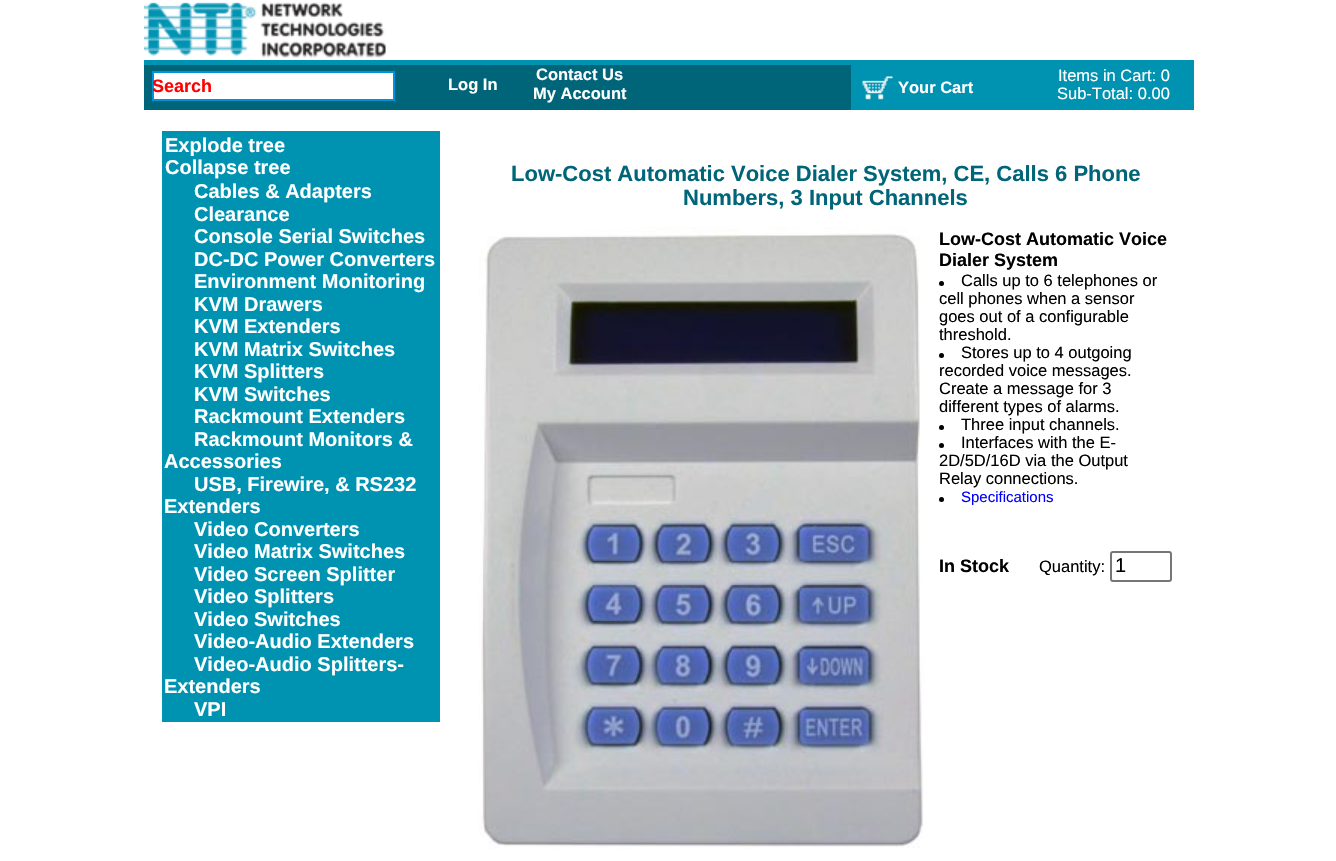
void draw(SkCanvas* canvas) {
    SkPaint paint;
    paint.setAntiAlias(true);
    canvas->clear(0xFFFFFFFF);
    canvas->drawImageRect(SkImages::DeferredFromEncodedData(SkData::MakeFromFileName("img1.png")), SkRect::MakeXYWH(144, 2, 242, 56), SkSamplingOptions());
    paint.setColor(0xFF006579);
    canvas->drawRect(SkRect::MakeXYWH(144, 65, 707, 45), paint);
    paint.setColor(0xFF0093B1);
    canvas->drawRect(SkRect::MakeXYWH(144, 60, 1050, 5), paint);
    paint.setColor(0xFFFFFFFF);
    canvas->drawRect(SkRect::MakeXYWH(153, 72, 241, 28), paint);
    paint.setStyle(SkPaint::kStroke_Style);
    paint.setStrokeWidth(2);
    paint.setColor(0xFF0093DD);
    canvas->drawRect(SkRect::MakeXYWH(153, 72, 241, 28), paint);
    SkFont font1(fontMgr->matchFamilyStyle("Liberation Sans", SkFontStyle::Bold()), 18);
    font1.setSubpixel(true);
    paint.setStyle(SkPaint::kFill_Style);
    paint.setColor(0xFFFF0000);
    canvas->drawString("Search", 152, 92, font1, paint);
    SkFont font2(fontMgr->matchFamilyStyle("Liberation Sans", SkFontStyle::Bold()), 16.5f);
    font2.setSubpixel(true);
    paint.setColor(0xFFFFFFFF);
    canvas->drawString("Log In", 448, 90, font2, paint);
    canvas->drawString("Contact Us", 536, 80, font2, paint);
    canvas->drawString("My Account", 533, 99, font2, paint);
    paint.setColor(0xFF0093B1);
    canvas->drawRect(SkRect::MakeXYWH(851, 65, 343, 45), paint);
    canvas->drawImageRect(SkImages::DeferredFromEncodedData(SkData::MakeFromFileName("img2.png")), SkRect::MakeXYWH(862, 76, 31, 24), SkSamplingOptions());
    paint.setColor(0xFFFFFFFF);
    canvas->drawString("Your Cart", 898, 93, font2, paint);
    SkFont font3(fontMgr->matchFamilyStyle("Liberation Sans", SkFontStyle::Normal()), 16.5f);
    font3.setSubpixel(true);
    canvas->drawString("Items in Cart: 0", 1058, 81, font3, paint);
    canvas->drawString("Sub-Total: 0.00", 1057, 99, font3, paint);
    paint.setColor(0xFF0093B1);
    canvas->drawRect(SkRect::MakeXYWH(162, 131, 278, 591), paint);
    SkFont font4(fontMgr->matchFamilyStyle("Liberation Sans", SkFontStyle::Bold()), 20);
    font4.setSubpixel(true);
    paint.setColor(0xFFFFFFFF);
    canvas->drawString("Explode tree", 165, 152, font4, paint);
    canvas->drawString("Collapse tree", 165, 174, font4, paint);
    paint.setColor(0xFF0093B1);
    canvas->drawRect(SkRect::MakeXYWH(190, 156, 4, 1), paint);
    paint.setColor(0xFFFFFFFF);
    canvas->drawString("Cables & Adapters", 194, 198, font4, paint);
    canvas->drawString("Clearance", 194, 221, font4, paint);
    canvas->drawString("Console Serial Switches", 194, 243, font4, paint);
    canvas->drawString("DC-DC Power Converters", 194, 266, font4, paint);
    canvas->drawString("Environment Monitoring", 194, 288, font4, paint);
    canvas->drawString("KVM Drawers", 194, 311, font4, paint);
    canvas->drawString("KVM Extenders", 194, 333, font4, paint);
    canvas->drawString("KVM Matrix Switches", 194, 356, font4, paint);
    canvas->drawString("KVM Splitters", 194, 378, font4, paint);
    canvas->drawString("KVM Switches", 194, 401, font4, paint);
    canvas->drawString("Rackmount Extenders", 194, 423, font4, paint);
    canvas->drawString("Rackmount Monitors &", 194, 446, font4, paint);
    canvas->drawString("Accessories", 164, 468, font4, paint);
    canvas->drawString("USB, Firewire, & RS232", 194, 491, font4, paint);
    canvas->drawString("Extenders", 164, 513, font4, paint);
    canvas->drawString("Video Converters", 194, 536, font4, paint);
    canvas->drawString("Video Matrix Switches", 194, 558, font4, paint);
    canvas->drawString("Video Screen Splitter", 194, 581, font4, paint);
    canvas->drawString("Video Splitters", 194, 603, font4, paint);
    canvas->drawString("Video Switches", 194, 626, font4, paint);
    canvas->drawString("Video-Audio Extenders", 194, 648, font4, paint);
    canvas->drawString("Video-Audio Splitters-", 194, 671, font4, paint);
    canvas->drawString("Extenders", 164, 693, font4, paint);
    canvas->drawString("VPI", 194, 716, font4, paint);
    SkFont font5(fontMgr->matchFamilyStyle("Liberation Sans", SkFontStyle::Bold()), 22);
    font5.setSubpixel(true);
    paint.setColor(0xFF006579);
    canvas->drawString("Low-Cost Automatic Voice Dialer System, CE, Calls 6 Phone", 511, 181, font5, paint);
    canvas->drawString("Numbers, 3 Input Channels", 683, 205, font5, paint);
    canvas->drawImageRect(SkImages::DeferredFromEncodedData(SkData::MakeFromFileName("img3.png")), SkRect::MakeXYWH(479, 227, 445, 622), SkSamplingOptions());
    paint.setColor(0xFF000000);
    canvas->drawString("Low-Cost Automatic Voice", 939, 245, font1, paint);
    canvas->drawString("Dialer System", 939, 266, font1, paint);
    canvas->drawCircle(941.5f, 283.5f, 2.5f, paint);
    canvas->drawString("Calls up to 6 telephones or", 961, 286, font3, paint);
    canvas->drawString("cell phones when a sensor", 939, 304, font3, paint);
    canvas->drawString("goes out of a configurable", 939, 322, font3, paint);
    canvas->drawString("threshold.", 939, 340, font3, paint);
    canvas->drawCircle(941.5f, 355.5f, 2.5f, paint);
    canvas->drawString("Stores up to 4 outgoing", 961, 358, font3, paint);
    canvas->drawString("recorded voice messages.", 939, 376, font3, paint);
    canvas->drawString("Create a message for 3", 939, 394, font3, paint);
    canvas->drawString("different types of alarms.", 939, 412, font3, paint);
    canvas->drawCircle(941.5f, 427.5f, 2.5f, paint);
    canvas->drawString("Three input channels.", 961, 430, font3, paint);
    canvas->drawCircle(941.5f, 445.5f, 2.5f, paint);
    canvas->drawString("Interfaces with the E-", 961, 448, font3, paint);
    canvas->drawString("2D/5D/16D via the Output", 939, 466, font3, paint);
    canvas->drawString("Relay connections.", 939, 484, font3, paint);
    canvas->drawCircle(941.5f, 499.5f, 2.5f, paint);
    SkFont font6(fontMgr->matchFamilyStyle("Liberation Sans", SkFontStyle::Normal()), 15);
    font6.setSubpixel(true);
    paint.setColor(0xFF0000FF);
    canvas->drawString("Specifications", 961, 502, font6, paint);
    paint.setColor(0xFF000000);
    canvas->drawString("In Stock", 939, 572, font1, paint);
    canvas->drawString("Quantity:", 1039, 572, font3, paint);
    paint.setStyle(SkPaint::kStroke_Style);
    paint.setColor(0xFF767676);
    canvas->drawRoundRect(SkRect::MakeXYWH(1111, 552, 60, 29), 2, 2, paint);
    SkFont font7(fontMgr->matchFamilyStyle("Liberation Sans", SkFontStyle::Normal()), 20);
    font7.setSubpixel(true);
    paint.setStyle(SkPaint::kFill_Style);
    paint.setColor(0xFF000000);
    canvas->drawString("1", 1115, 572, font7, paint);
}
